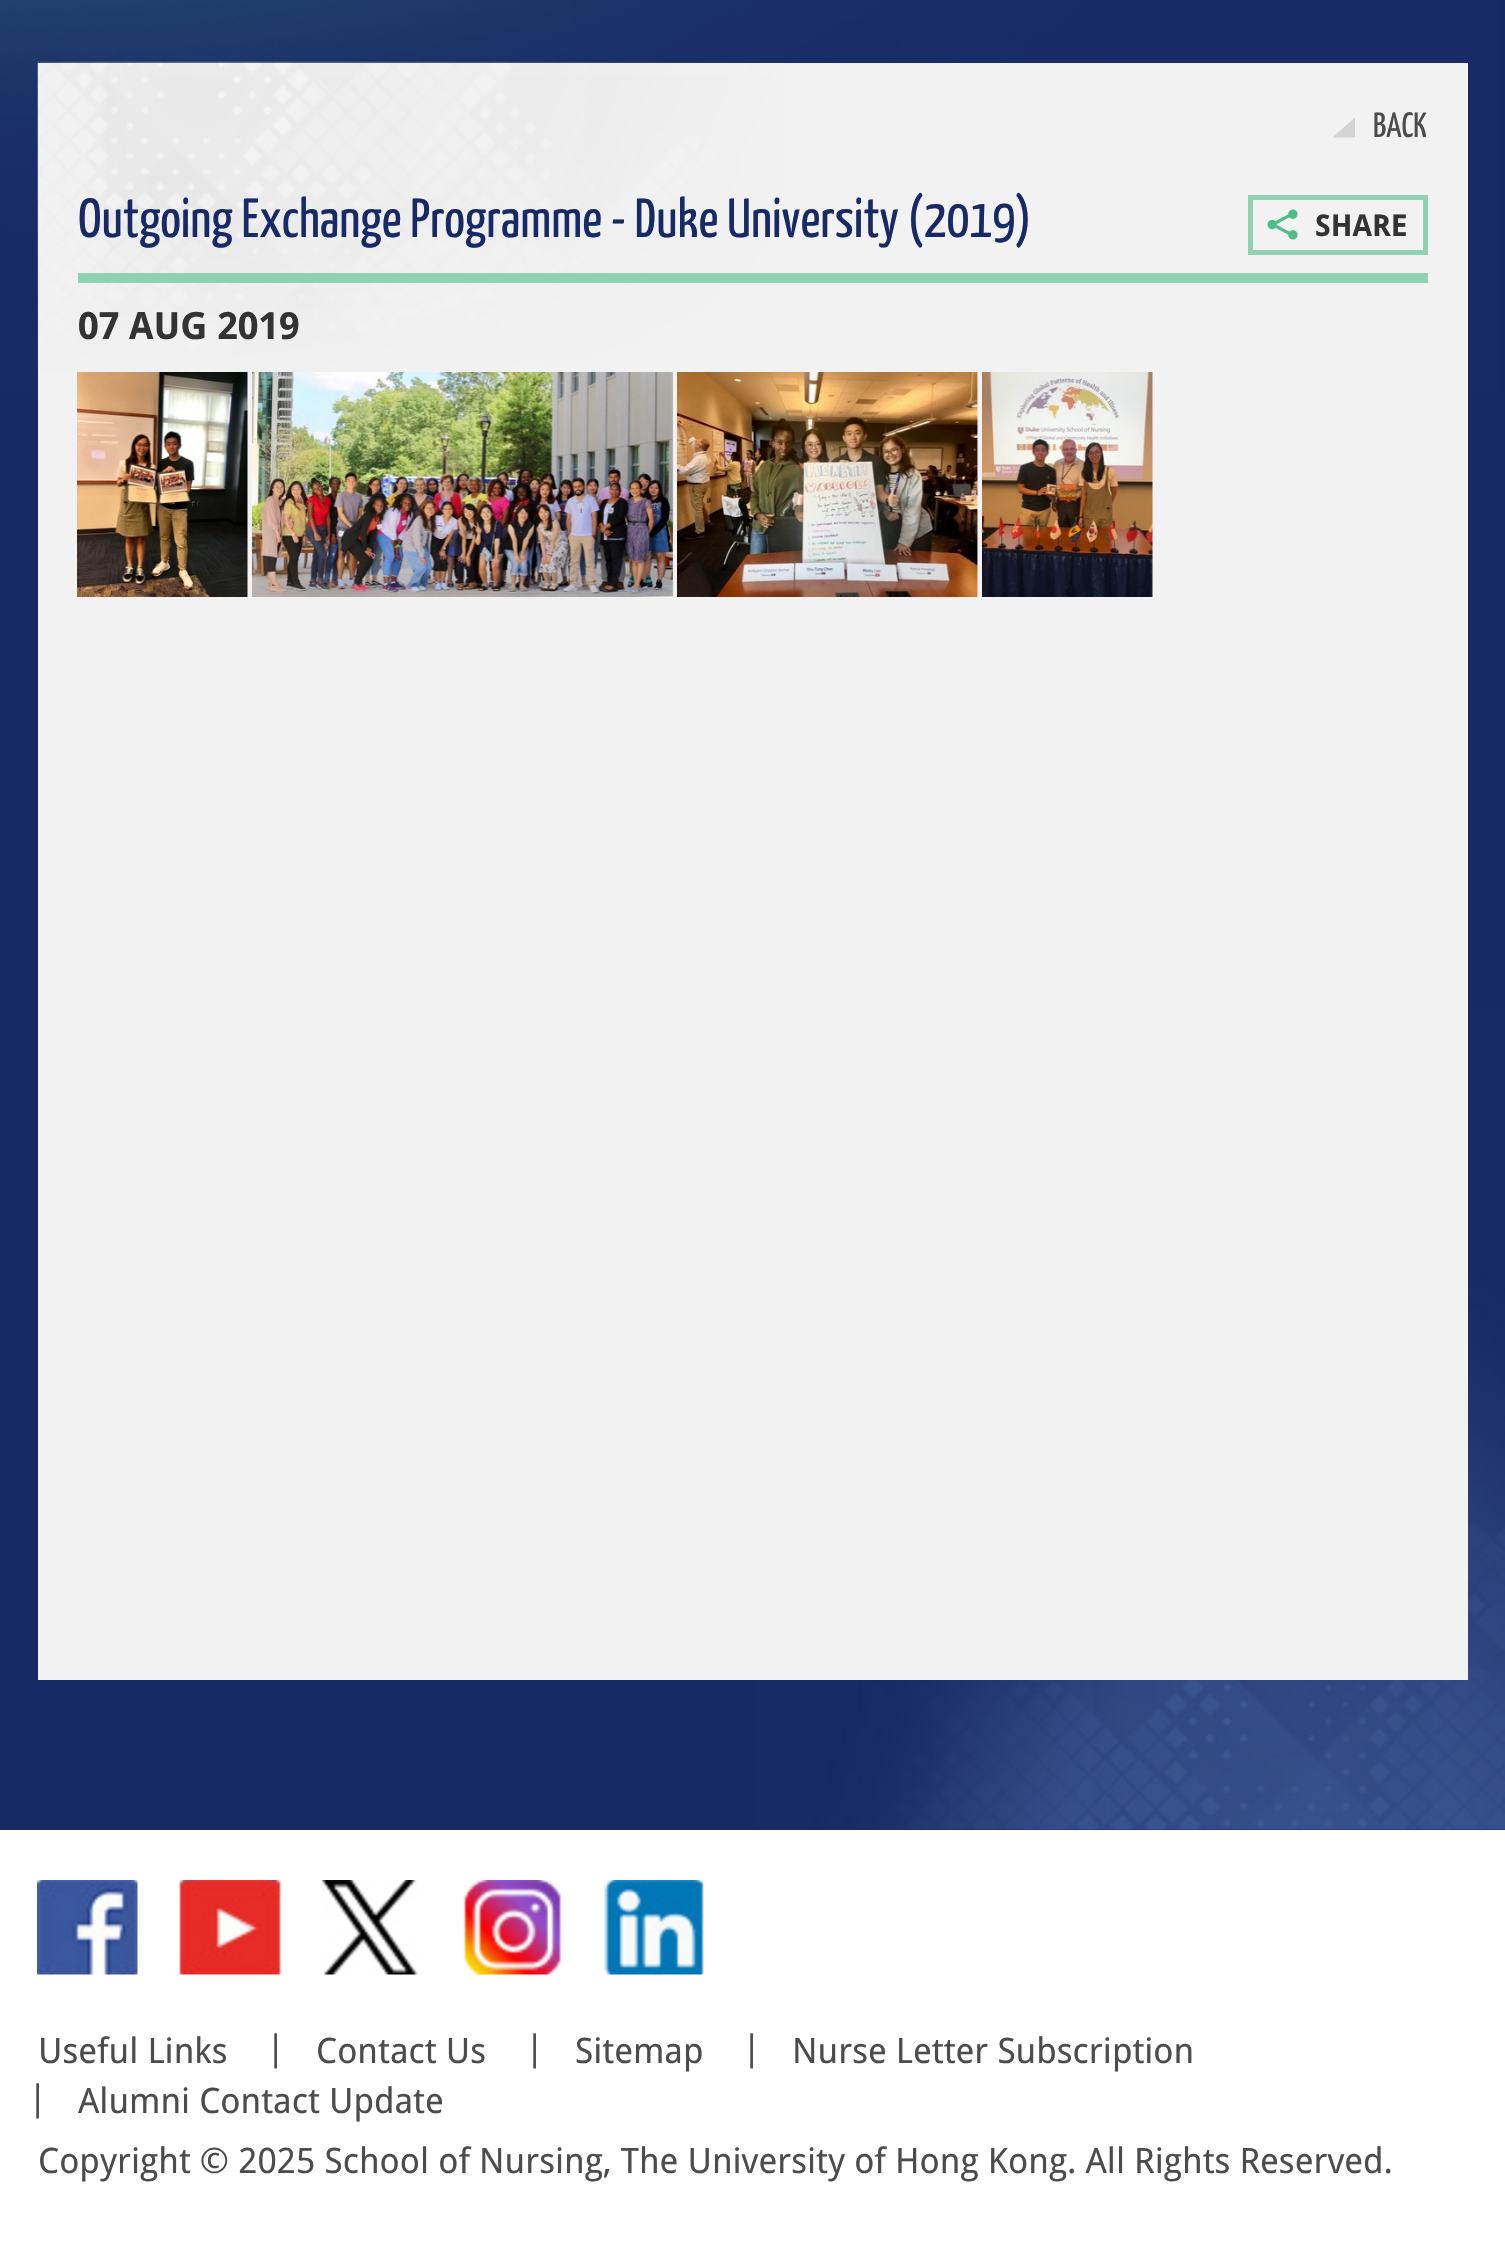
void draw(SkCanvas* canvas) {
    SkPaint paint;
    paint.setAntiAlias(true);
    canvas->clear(0xFFFFFFFF);
    paint.setColor(0xFF182A66);
    canvas->drawRect(SkRect::MakeXYWH(0, 0, 1505, 1830), paint);
    canvas->drawImageRect(SkImages::DeferredFromEncodedData(SkData::MakeFromFileName("img1.png")), SkRect::MakeXYWH(0, 0, 1505, 1830), SkSamplingOptions());
    paint.setColor(0xFFF2F2F2);
    canvas->drawRect(SkRect::MakeXYWH(38, 63, 1430, 1617), paint);
    canvas->drawImageRect(SkImages::DeferredFromEncodedData(SkData::MakeFromFileName("img2.png")), SkRect::MakeXYWH(37, 61, 748, 312), SkSamplingOptions());
    paint.setColor(0xFFD4D4D4);
    canvas->drawPath(SkPathBuilder().moveTo(1355, 137.5f).lineTo(1332.5f, 137.5f).lineTo(1355, 117.5f).close().detach(), paint);
    SkFont font1(fontMgr->matchFamilyStyle("Yanone Kaffeesatz", SkFontStyle::Normal()), 35.05f);
    font1.setSubpixel(true);
    paint.setColor(0xFF4C4C4C);
    canvas->drawString("BACK", 1373, 137, font1, paint);
    paint.setColor(0xFF8FD1B2);
    canvas->drawRect(SkRect::MakeXYWH(78, 273, 1350, 10), paint);
    SkFont font2(fontMgr->matchFamilyStyle("Yanone Kaffeesatz", SkFontStyle::Normal()), 55);
    font2.setSubpixel(true);
    paint.setColor(0xFF182A66);
    canvas->drawString("Outgoing Exchange Programme - Duke University (2019)", 78, 237, font2, paint);
    paint.setStyle(SkPaint::kStroke_Style);
    paint.setStrokeWidth(5);
    paint.setColor(0xFF8FD1B2);
    canvas->drawRect(SkRect::MakeXYWH(1250.5f, 197.5f, 175, 55), paint);
    canvas->drawImageRect(SkImages::DeferredFromEncodedData(SkData::MakeFromFileName("img3.png")), SkRect::MakeXYWH(1267, 209, 31, 31), SkSamplingOptions());
    SkFont font3(fontMgr->matchFamilyStyle("Droid Sans", SkFontStyle::Bold()), 30);
    font3.setSubpixel(true);
    paint.setStyle(SkPaint::kFill_Style);
    paint.setColor(0xFF333333);
    canvas->drawString("SHARE", 1315, 236, font3, paint);
    SkFont font4(fontMgr->matchFamilyStyle("Droid Sans", SkFontStyle::Bold()), 37.5f);
    font4.setSubpixel(true);
    canvas->drawString("07 AUG 2019", 78, 339, font4, paint);
    canvas->drawImageRect(SkImages::DeferredFromEncodedData(SkData::MakeFromFileName("img4.png")), SkRect::MakeXYWH(77, 372, 171, 225), SkSamplingOptions());
    canvas->drawImageRect(SkImages::DeferredFromEncodedData(SkData::MakeFromFileName("img5.png")), SkRect::MakeXYWH(252, 372, 421, 225), SkSamplingOptions());
    canvas->drawImageRect(SkImages::DeferredFromEncodedData(SkData::MakeFromFileName("img6.png")), SkRect::MakeXYWH(677, 372, 301, 225), SkSamplingOptions());
    canvas->drawImageRect(SkImages::DeferredFromEncodedData(SkData::MakeFromFileName("img7.png")), SkRect::MakeXYWH(982, 372, 171, 225), SkSamplingOptions());
    canvas->drawImageRect(SkImages::DeferredFromEncodedData(SkData::MakeFromFileName("img8.png")), SkRect::MakeXYWH(37, 1880, 101, 95), SkSamplingOptions());
    canvas->drawImageRect(SkImages::DeferredFromEncodedData(SkData::MakeFromFileName("img9.png")), SkRect::MakeXYWH(179, 1880, 102, 95), SkSamplingOptions());
    canvas->drawImageRect(SkImages::DeferredFromEncodedData(SkData::MakeFromFileName("img10.png")), SkRect::MakeXYWH(321, 1880, 98, 95), SkSamplingOptions());
    canvas->drawImageRect(SkImages::DeferredFromEncodedData(SkData::MakeFromFileName("img11.png")), SkRect::MakeXYWH(463, 1880, 99, 95), SkSamplingOptions());
    canvas->drawImageRect(SkImages::DeferredFromEncodedData(SkData::MakeFromFileName("img12.png")), SkRect::MakeXYWH(604, 1880, 101, 95), SkSamplingOptions());
    SkFont font5(fontMgr->matchFamilyStyle("Droid Sans", SkFontStyle::Normal()), 35.05f);
    font5.setSubpixel(true);
    paint.setColor(0xFF4C4C4C);
    canvas->drawString("Useful Links", 38, 2063, font5, paint);
    canvas->drawString("|", 266, 2060, font5, paint);
    canvas->drawString("Contact Us", 316, 2063, font5, paint);
    canvas->drawString("|", 525, 2060, font5, paint);
    canvas->drawString("Sitemap", 575, 2063, font5, paint);
    canvas->drawString("|", 742, 2060, font5, paint);
    canvas->drawString("Nurse Letter Subscription", 792, 2063, font5, paint);
    canvas->drawString("|", 28, 2110, font5, paint);
    canvas->drawString("Alumni Contact Update", 78, 2113, font5, paint);
    canvas->drawString("Copyright © 2025 School of Nursing, The University of Hong Kong. All Rights Reserved.", 38, 2173, font5, paint);
}
